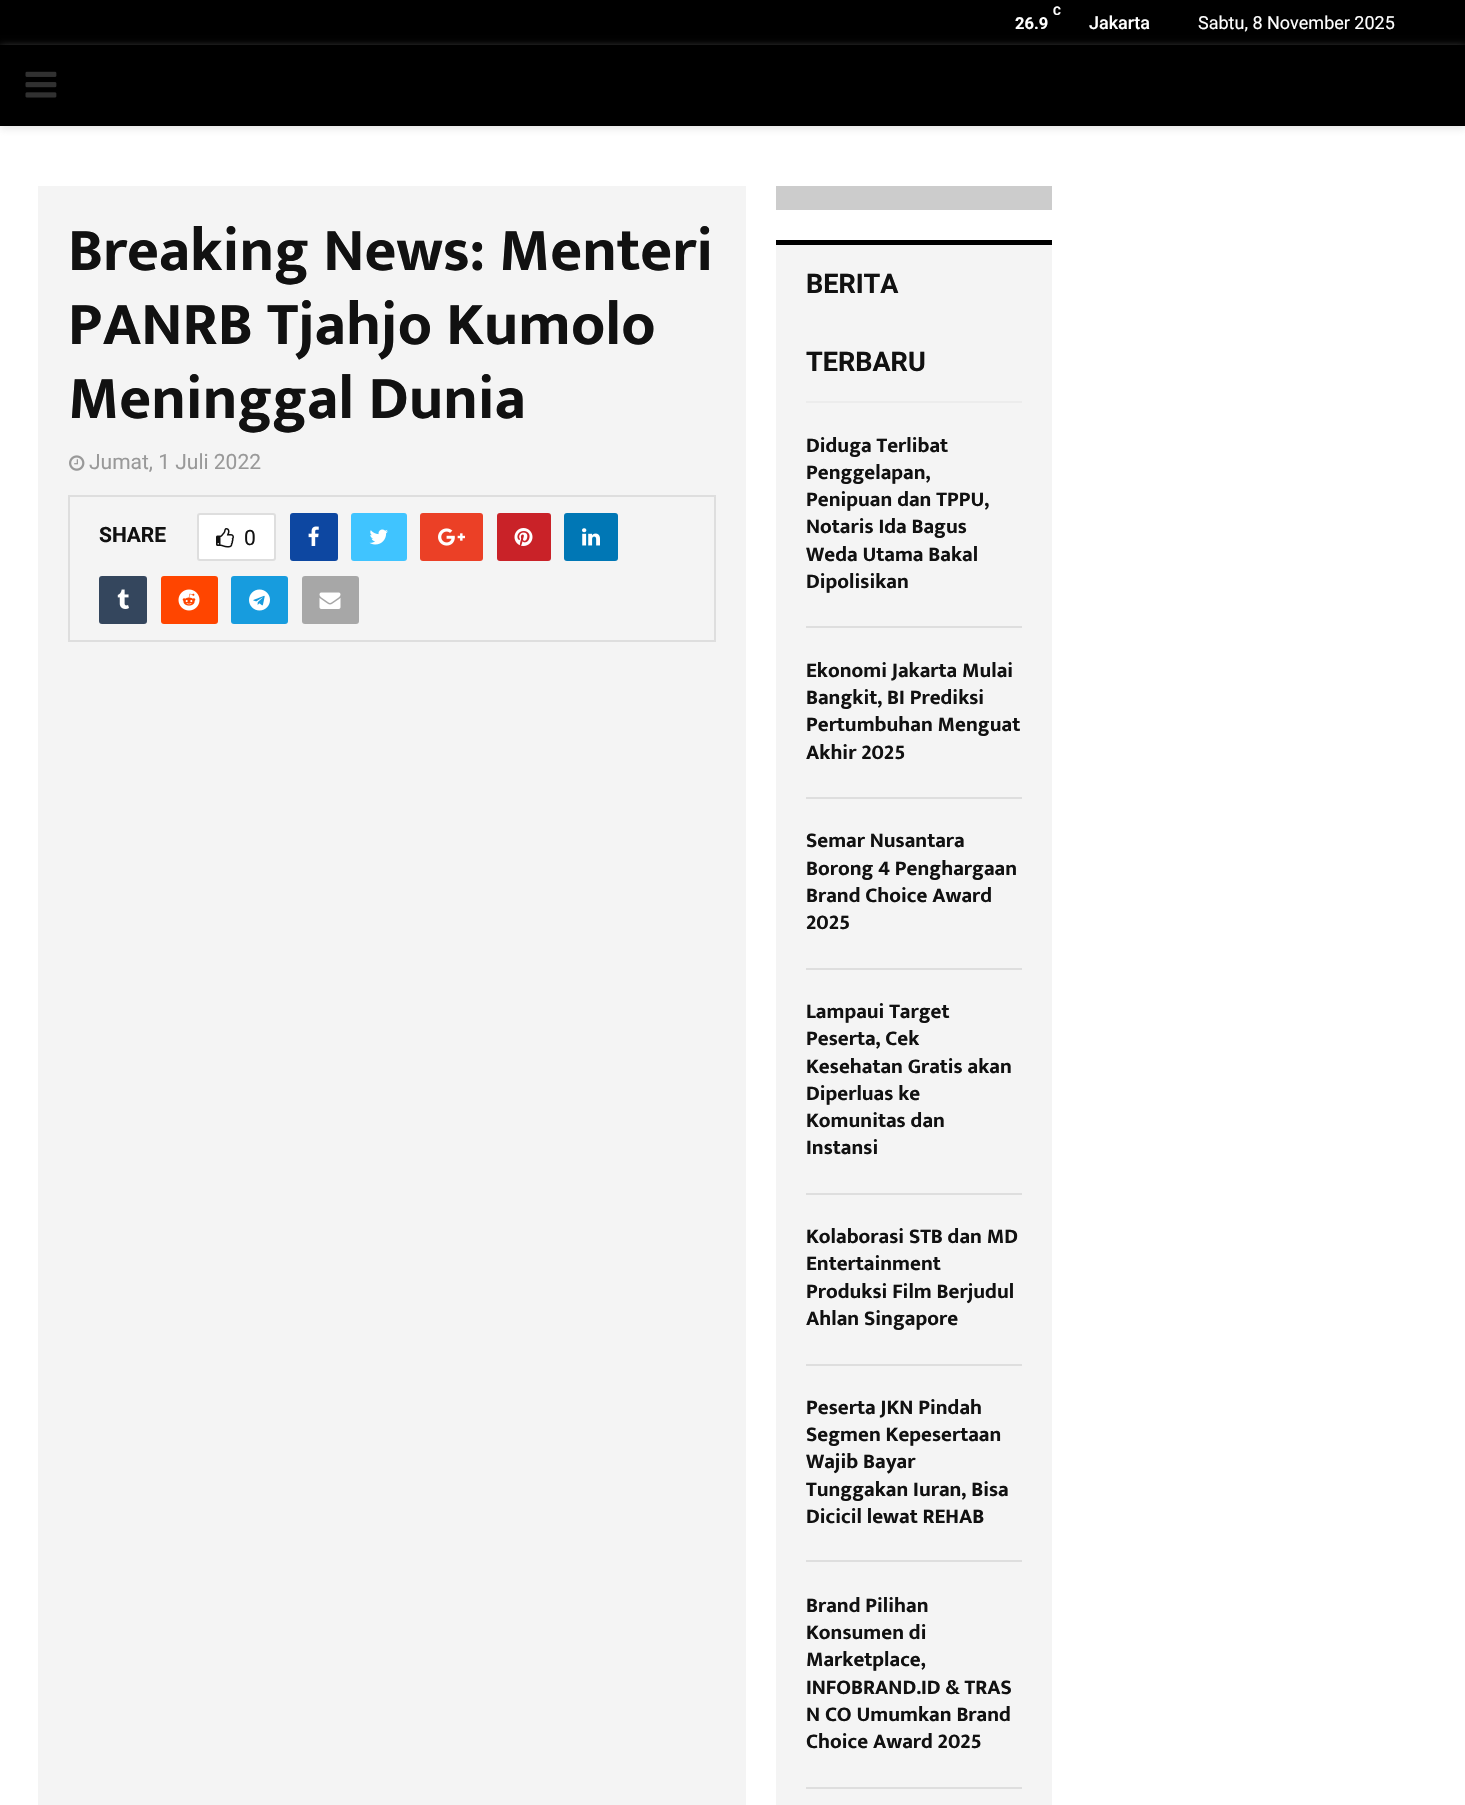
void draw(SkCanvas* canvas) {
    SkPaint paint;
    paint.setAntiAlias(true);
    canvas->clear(0xFFFFFFFF);
    paint.setColor(0xFF000000);
    canvas->drawRect(SkRect::MakeXYWH(0, 0, 1465, 45), paint);
    SkFont font1(fontMgr->matchFamilyStyle("Roboto", SkFontStyle::Bold()), 12);
    font1.setSubpixel(true);
    paint.setColor(0xFFFFFFFF);
    canvas->drawString("C", 1053, 15, font1, paint);
    SkFont font2(fontMgr->matchFamilyStyle("Roboto", SkFontStyle::Bold()), 16.5f);
    font2.setSubpixel(true);
    canvas->drawString("26.9", 1015, 29, font2, paint);
    SkFont font3(fontMgr->matchFamilyStyle("Roboto", SkFontStyle(500, SkFontStyle::kNormal_Width, SkFontStyle::kUpright_Slant)), 18);
    font3.setSubpixel(true);
    canvas->drawString("Jakarta", 1089, 29, font3, paint);
    SkFont font4(fontMgr->matchFamilyStyle("Roboto", SkFontStyle::Normal()), 18);
    font4.setSubpixel(true);
    canvas->drawString("Sabtu, 8 November 2025", 1198, 29, font4, paint);
    paint.setColor(0x75BEBEBE);
    paint.setMaskFilter(SkMaskFilter::MakeBlur(kNormal_SkBlurStyle, 4));
    canvas->drawRect(SkRect::MakeXYWH(0, 47, 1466, 81), paint);
    paint.setMaskFilter(nullptr);
    paint.setColor(0xFF000000);
    canvas->drawRect(SkRect::MakeXYWH(0, 45, 1465, 81), paint);
    canvas->drawImageRect(SkImages::DeferredFromEncodedData(SkData::MakeFromFileName("img1.png")), SkRect::MakeXYWH(25, 71, 32, 27), SkSamplingOptions());
    paint.setColor(0xFFF4F4F4);
    canvas->drawRect(SkRect::MakeXYWH(38, 186, 708, 1619), paint);
    SkFont font5(fontMgr->matchFamilyStyle("Mukta Vaani", SkFontStyle::Bold()), 61.5f);
    font5.setSubpixel(true);
    paint.setColor(0xFF111111);
    canvas->drawString("Breaking News: Menteri", 68, 270, font5, paint);
    canvas->drawString("PANRB Tjahjo Kumolo", 68, 344, font5, paint);
    canvas->drawString("Meninggal Dunia", 68, 418, font5, paint);
    canvas->drawImageRect(SkImages::DeferredFromEncodedData(SkData::MakeFromFileName("img2.png")), SkRect::MakeXYWH(69, 455, 16, 16), SkSamplingOptions());
    SkFont font6(fontMgr->matchFamilyStyle("Roboto", SkFontStyle::Normal()), 21);
    font6.setSubpixel(true);
    paint.setColor(0xFF999999);
    canvas->drawString("Jumat, 1 Juli 2022", 89, 469, font6, paint);
    paint.setStyle(SkPaint::kStroke_Style);
    paint.setStrokeWidth(2);
    paint.setColor(0xFFDEDEDE);
    canvas->drawRect(SkRect::MakeXYWH(69, 496, 646, 145), paint);
    SkFont font7(fontMgr->matchFamilyStyle("Roboto", SkFontStyle::Bold()), 21);
    font7.setSubpixel(true);
    paint.setStyle(SkPaint::kFill_Style);
    paint.setColor(0xFF111111);
    canvas->drawString("SHARE", 99, 542, font7, paint);
    paint.setColor(0xFFFFFFFF);
    canvas->drawRoundRect(SkRect::MakeXYWH(198, 514, 77, 46), 2, 2, paint);
    paint.setStyle(SkPaint::kStroke_Style);
    paint.setColor(0xFFDEDEDE);
    canvas->drawRoundRect(SkRect::MakeXYWH(198, 514, 77, 46), 2, 2, paint);
    canvas->drawImageRect(SkImages::DeferredFromEncodedData(SkData::MakeFromFileName("img3.png")), SkRect::MakeXYWH(216, 528, 18, 20), SkSamplingOptions());
    paint.setStyle(SkPaint::kFill_Style);
    paint.setColor(0xFF111111);
    canvas->drawString("0", 244, 545, font6, paint);
    paint.setColor(0xFF0D47A1);
    canvas->drawRoundRect(SkRect::MakeXYWH(290, 513, 48, 48), 3, 3, paint);
    canvas->drawImageRect(SkImages::DeferredFromEncodedData(SkData::MakeFromFileName("img4.png")), SkRect::MakeXYWH(308, 526, 11, 20), SkSamplingOptions());
    paint.setColor(0xFF40C4FF);
    canvas->drawRoundRect(SkRect::MakeXYWH(351, 513, 56, 48), 3, 3, paint);
    canvas->drawImageRect(SkImages::DeferredFromEncodedData(SkData::MakeFromFileName("img5.png")), SkRect::MakeXYWH(369, 529, 19, 16), SkSamplingOptions());
    paint.setColor(0xFFEB4026);
    canvas->drawRoundRect(SkRect::MakeXYWH(420, 513, 63, 48), 3, 3, paint);
    canvas->drawImageRect(SkImages::DeferredFromEncodedData(SkData::MakeFromFileName("img6.png")), SkRect::MakeXYWH(438, 528, 27, 18), SkSamplingOptions());
    paint.setColor(0xFFC92228);
    canvas->drawRoundRect(SkRect::MakeXYWH(497, 513, 54, 48), 3, 3, paint);
    canvas->drawImageRect(SkImages::DeferredFromEncodedData(SkData::MakeFromFileName("img7.png")), SkRect::MakeXYWH(514, 528, 19, 18), SkSamplingOptions());
    paint.setColor(0xFF0077B5);
    canvas->drawRoundRect(SkRect::MakeXYWH(564, 513, 54, 48), 3, 3, paint);
    canvas->drawImageRect(SkImages::DeferredFromEncodedData(SkData::MakeFromFileName("img8.png")), SkRect::MakeXYWH(582, 528, 18, 18), SkSamplingOptions());
    paint.setColor(0xFF34465D);
    canvas->drawRoundRect(SkRect::MakeXYWH(99, 576, 48, 48), 3, 3, paint);
    canvas->drawImageRect(SkImages::DeferredFromEncodedData(SkData::MakeFromFileName("img9.png")), SkRect::MakeXYWH(117, 589, 12, 20), SkSamplingOptions());
    paint.setColor(0xFFFF4500);
    canvas->drawRoundRect(SkRect::MakeXYWH(161, 576, 57, 48), 3, 3, paint);
    canvas->drawImageRect(SkImages::DeferredFromEncodedData(SkData::MakeFromFileName("img10.png")), SkRect::MakeXYWH(178, 589, 22, 22), SkSamplingOptions());
    paint.setColor(0xFF179CDE);
    canvas->drawRoundRect(SkRect::MakeXYWH(231, 576, 57, 48), 3, 3, paint);
    canvas->drawImageRect(SkImages::DeferredFromEncodedData(SkData::MakeFromFileName("img11.png")), SkRect::MakeXYWH(249, 589, 21, 22), SkSamplingOptions());
    paint.setColor(0xFFA7A7A7);
    canvas->drawRoundRect(SkRect::MakeXYWH(302, 576, 57, 48), 3, 3, paint);
    canvas->drawImageRect(SkImages::DeferredFromEncodedData(SkData::MakeFromFileName("img12.png")), SkRect::MakeXYWH(319, 592, 22, 17), SkSamplingOptions());
    paint.setColor(0xFFCCCCCC);
    canvas->drawRect(SkRect::MakeXYWH(776, 186, 276, 24), paint);
    paint.setColor(0xFFF4F4F4);
    canvas->drawRect(SkRect::MakeXYWH(776, 245, 276, 1560), paint);
    paint.setColor(0xFFECECEC);
    canvas->drawRect(SkRect::MakeXYWH(806, 401, 216, 2), paint);
    paint.setColor(0xFF000000);
    canvas->drawRect(SkRect::MakeXYWH(776, 240, 276, 5), paint);
    SkFont font8(fontMgr->matchFamilyStyle("Roboto", SkFontStyle::Bold()), 27);
    font8.setSubpixel(true);
    paint.setColor(0xFF111111);
    canvas->drawString("BERITA", 806, 293, font8, paint);
    canvas->drawString("TERBARU", 806, 371, font8, paint);
    paint.setColor(0xFFDEDEDE);
    canvas->drawRect(SkRect::MakeXYWH(806, 626, 216, 2), paint);
    SkFont font9(fontMgr->matchFamilyStyle("Mukta Vaani", SkFontStyle::Bold()), 21);
    font9.setSubpixel(true);
    paint.setColor(0xFF111111);
    canvas->drawString("Diduga Terlibat", 806, 452, font9, paint);
    canvas->drawString("Penggelapan,", 806, 479, font9, paint);
    canvas->drawString("Penipuan dan TPPU,", 806, 506, font9, paint);
    canvas->drawString("Notaris Ida Bagus", 806, 533, font9, paint);
    canvas->drawString("Weda Utama Bakal", 806, 561, font9, paint);
    canvas->drawString("Dipolisikan", 806, 588, font9, paint);
    paint.setColor(0xFFDEDEDE);
    canvas->drawRect(SkRect::MakeXYWH(806, 797, 216, 2), paint);
    paint.setColor(0xFF111111);
    canvas->drawString("Ekonomi Jakarta Mulai", 806, 677, font9, paint);
    canvas->drawString("Bangkit, BI Prediksi", 806, 704, font9, paint);
    canvas->drawString("Pertumbuhan Menguat", 806, 731, font9, paint);
    canvas->drawString("Akhir 2025", 806, 759, font9, paint);
    paint.setColor(0xFFDEDEDE);
    canvas->drawRect(SkRect::MakeXYWH(806, 968, 216, 2), paint);
    paint.setColor(0xFF111111);
    canvas->drawString("Semar Nusantara", 806, 847, font9, paint);
    canvas->drawString("Borong 4 Penghargaan", 806, 875, font9, paint);
    canvas->drawString("Brand Choice Award", 806, 902, font9, paint);
    canvas->drawString("2025", 806, 929, font9, paint);
    paint.setColor(0xFFDEDEDE);
    canvas->drawRect(SkRect::MakeXYWH(806, 1193, 216, 2), paint);
    paint.setColor(0xFF111111);
    canvas->drawString("Lampaui Target", 806, 1018, font9, paint);
    canvas->drawString("Peserta, Cek", 806, 1045, font9, paint);
    canvas->drawString("Kesehatan Gratis akan", 806, 1073, font9, paint);
    canvas->drawString("Diperluas ke", 806, 1100, font9, paint);
    canvas->drawString("Komunitas dan", 806, 1127, font9, paint);
    canvas->drawString("Instansi", 806, 1154, font9, paint);
    paint.setColor(0xFFDEDEDE);
    canvas->drawRect(SkRect::MakeXYWH(806, 1364, 216, 2), paint);
    paint.setColor(0xFF111111);
    canvas->drawString("Kolaborasi STB dan MD", 806, 1243, font9, paint);
    canvas->drawString("Entertainment", 806, 1270, font9, paint);
    canvas->drawString("Produksi Film Berjudul", 806, 1298, font9, paint);
    canvas->drawString("Ahlan Singapore", 806, 1325, font9, paint);
    paint.setColor(0xFFDEDEDE);
    canvas->drawRect(SkRect::MakeXYWH(806, 1560, 216, 2), paint);
    paint.setColor(0xFF111111);
    canvas->drawString("Peserta JKN Pindah", 806, 1414, font9, paint);
    canvas->drawString("Segmen Kepesertaan", 806, 1441, font9, paint);
    canvas->drawString("Wajib Bayar", 806, 1468, font9, paint);
    canvas->drawString("Tunggakan Iuran, Bisa", 806, 1496, font9, paint);
    canvas->drawString("Dicicil lewat REHAB", 806, 1523, font9, paint);
    paint.setColor(0xFFDEDEDE);
    canvas->drawRect(SkRect::MakeXYWH(806, 1787, 216, 2), paint);
    paint.setColor(0xFF111111);
    canvas->drawString("Brand Pilihan", 806, 1612, font9, paint);
    canvas->drawString("Konsumen di", 806, 1639, font9, paint);
    canvas->drawString("Marketplace,", 806, 1666, font9, paint);
    canvas->drawString("INFOBRAND.ID & TRAS", 806, 1694, font9, paint);
    canvas->drawString("N CO Umumkan Brand", 806, 1721, font9, paint);
    canvas->drawString("Choice Award 2025", 806, 1748, font9, paint);
}
